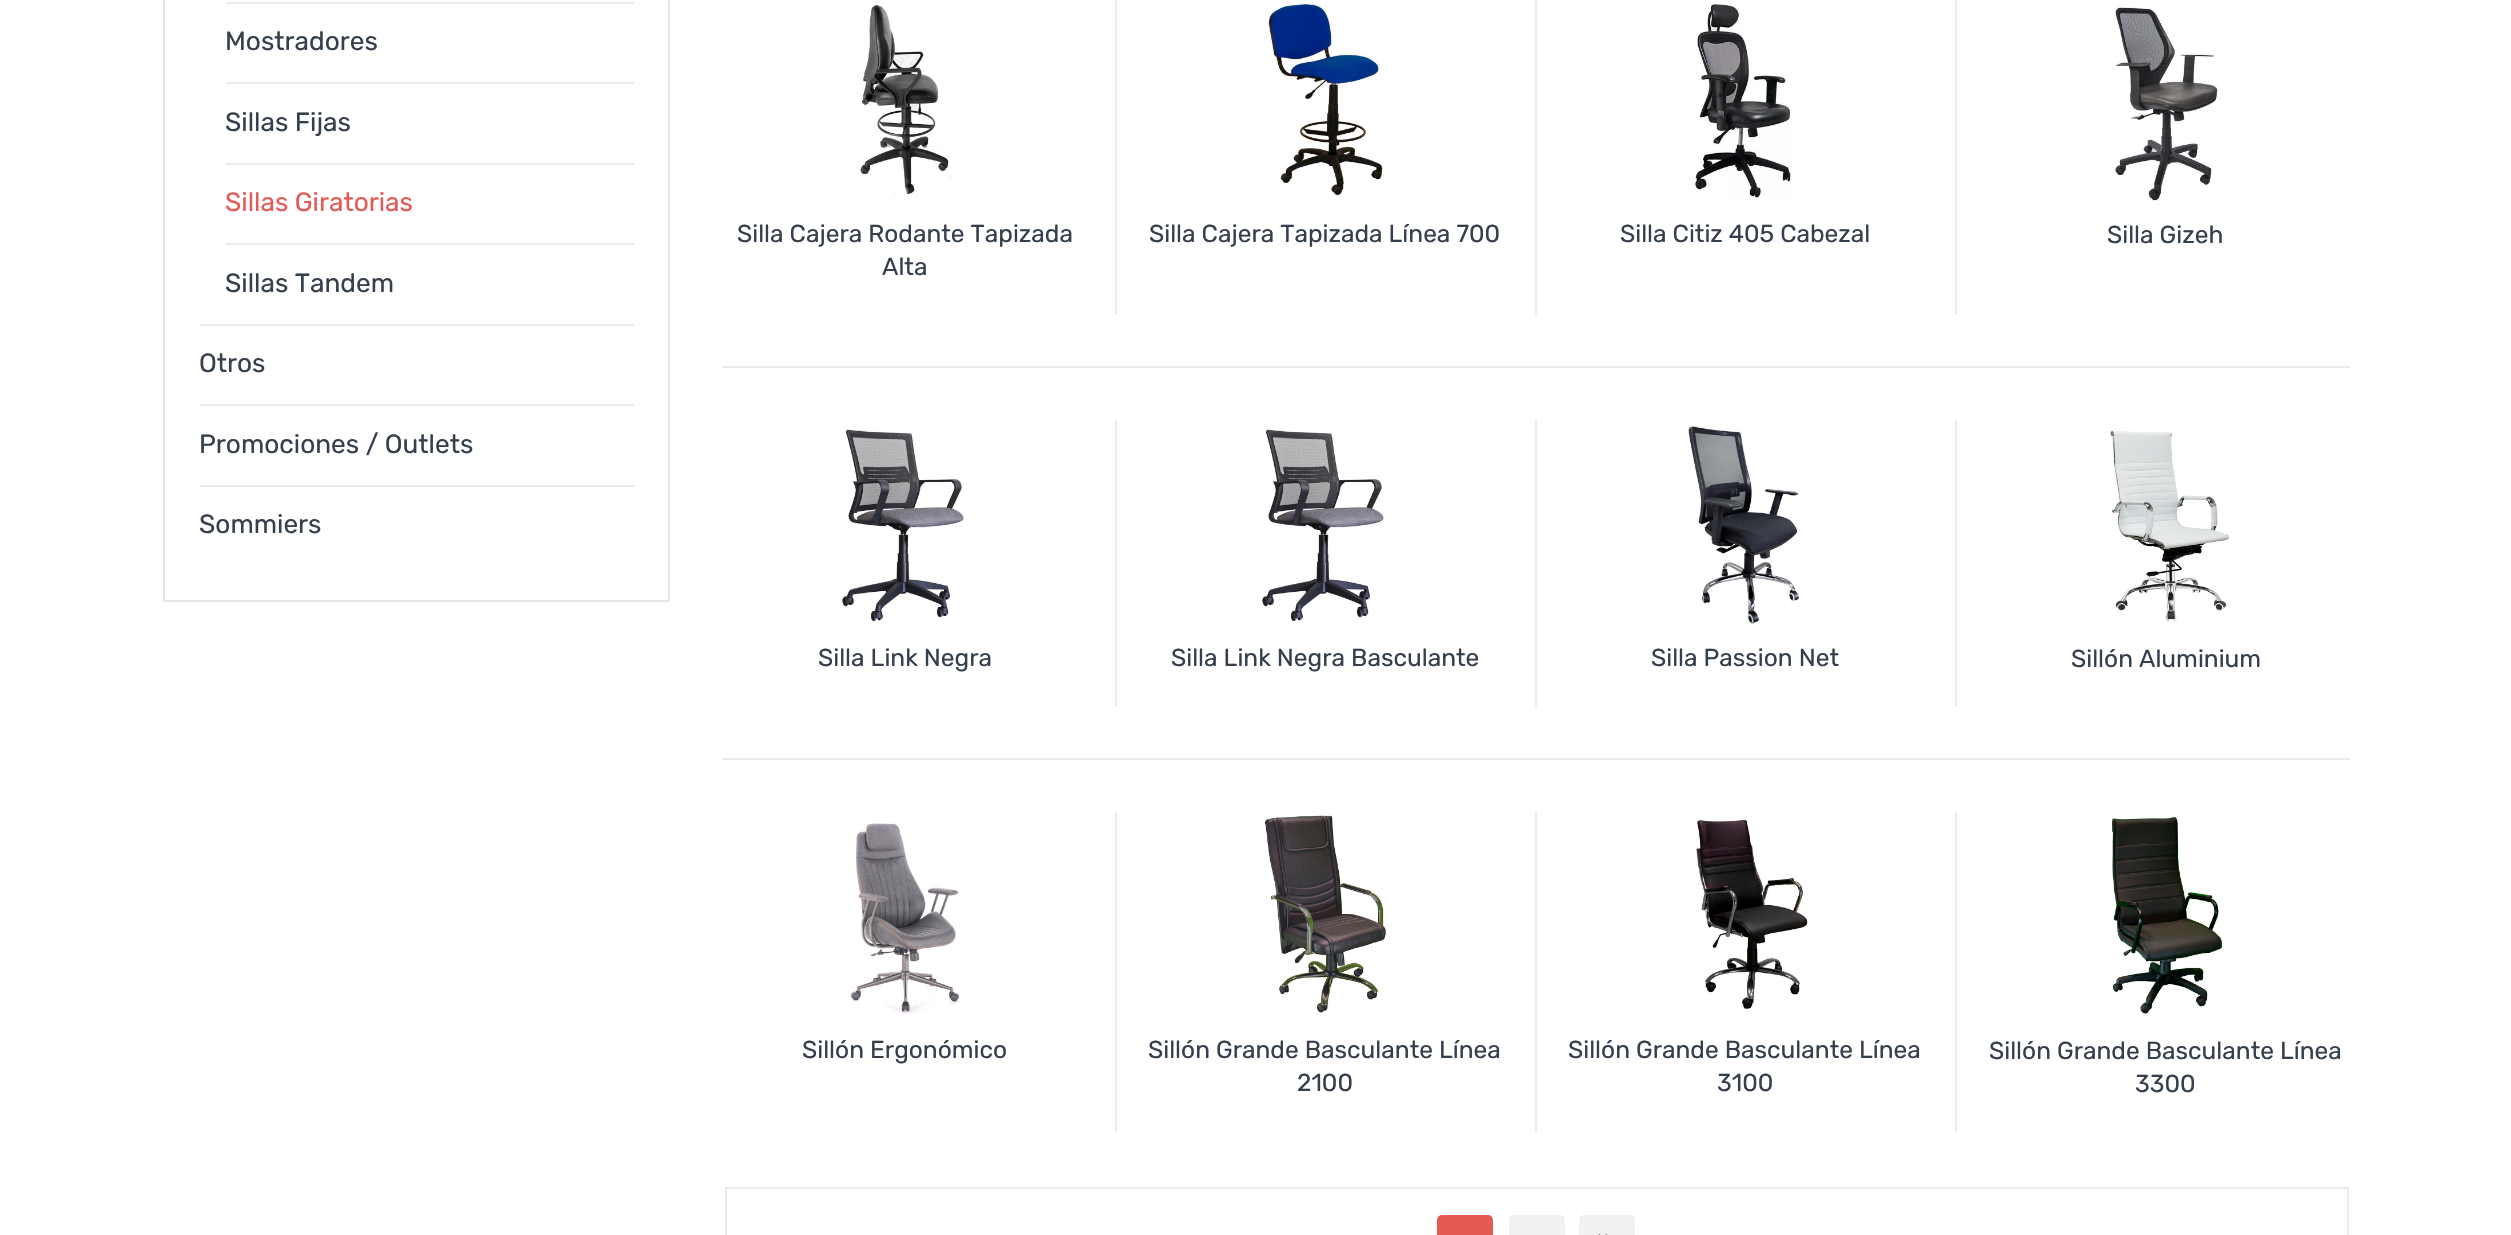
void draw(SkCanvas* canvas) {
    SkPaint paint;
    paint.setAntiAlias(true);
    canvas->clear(0xFFFFFFFF);
    paint.setStyle(SkPaint::kStroke_Style);
    paint.setStrokeWidth(2);
    paint.setColor(0xFFE5E5E5);
    canvas->drawRect(SkRect::MakeXYWH(164, -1, 505, 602), paint);
    paint.setStyle(SkPaint::kFill_Style);
    paint.setColor(0xFFEBEBEB);
    canvas->drawRect(SkRect::MakeXYWH(200, 324, 434, 2), paint);
    canvas->drawRect(SkRect::MakeXYWH(226, 2, 408, 2), paint);
    canvas->drawRect(SkRect::MakeXYWH(226, 82, 408, 2), paint);
    SkFont font1(fontMgr->matchFamilyStyle("Rubik", SkFontStyle::Normal()), 26.25f);
    font1.setSubpixel(true);
    paint.setColor(0xFF363F4D);
    canvas->drawString("Mostradores", 225, 50, font1, paint);
    paint.setColor(0xFFEBEBEB);
    canvas->drawRect(SkRect::MakeXYWH(226, 163, 408, 2), paint);
    paint.setColor(0xFF363F4D);
    canvas->drawString("Sillas Fijas", 225, 131, font1, paint);
    paint.setColor(0xFFEBEBEB);
    canvas->drawRect(SkRect::MakeXYWH(226, 243, 408, 2), paint);
    paint.setColor(0xFFE55A55);
    canvas->drawString("Sillas Giratorias", 225, 211, font1, paint);
    paint.setColor(0xFF363F4D);
    canvas->drawString("Sillas Tandem", 225, 292, font1, paint);
    paint.setColor(0xFFEBEBEB);
    canvas->drawRect(SkRect::MakeXYWH(200, 404, 434, 2), paint);
    paint.setColor(0xFF363F4D);
    canvas->drawString("Otros", 199, 372, font1, paint);
    paint.setColor(0xFFEBEBEB);
    canvas->drawRect(SkRect::MakeXYWH(200, 485, 434, 2), paint);
    paint.setColor(0xFF363F4D);
    canvas->drawString("Promociones / Outlets", 199, 453, font1, paint);
    canvas->drawString("Sommiers", 199, 533, font1, paint);
    paint.setColor(0xFFEBEBEB);
    canvas->drawRect(SkRect::MakeXYWH(1115, 0, 2, 315), paint);
    canvas->drawImageRect(SkImages::DeferredFromEncodedData(SkData::MakeFromFileName("img1.png")), SkRect::MakeXYWH(860, 5, 107, 197), SkSamplingOptions());
    SkFont font2(fontMgr->matchFamilyStyle("Rubik", SkFontStyle::Normal()), 24.5f);
    font2.setSubpixel(true);
    paint.setColor(0xFF363F4D);
    canvas->drawString("Silla Cajera Rodante Tapizada", 737, 242, font2, paint);
    canvas->drawString("Alta", 882, 275, font2, paint);
    paint.setColor(0xFFEBEBEB);
    canvas->drawRect(SkRect::MakeXYWH(1535, 0, 2, 315), paint);
    canvas->drawImageRect(SkImages::DeferredFromEncodedData(SkData::MakeFromFileName("img2.png")), SkRect::MakeXYWH(1268, 3, 115, 193), SkSamplingOptions());
    paint.setColor(0xFF363F4D);
    canvas->drawString("Silla Cajera Tapizada Línea 700", 1149, 242, font2, paint);
    paint.setColor(0xFFEBEBEB);
    canvas->drawRect(SkRect::MakeXYWH(1955, 0, 2, 315), paint);
    canvas->drawImageRect(SkImages::DeferredFromEncodedData(SkData::MakeFromFileName("img3.png")), SkRect::MakeXYWH(1693, 3, 99, 195), SkSamplingOptions());
    paint.setColor(0xFF363F4D);
    canvas->drawString("Silla Citiz 405 Cabezal", 1620, 242, font2, paint);
    canvas->drawImageRect(SkImages::DeferredFromEncodedData(SkData::MakeFromFileName("img4.png")), SkRect::MakeXYWH(2113, 7, 105, 194), SkSamplingOptions());
    canvas->drawString("Silla Gizeh", 2107, 243, font2, paint);
    paint.setColor(0xFFEBEBEB);
    canvas->drawRect(SkRect::MakeXYWH(723, 366, 1627, 2), paint);
    canvas->drawRect(SkRect::MakeXYWH(1115, 420, 2, 287), paint);
    canvas->drawImageRect(SkImages::DeferredFromEncodedData(SkData::MakeFromFileName("img5.png")), SkRect::MakeXYWH(842, 429, 122, 193), SkSamplingOptions());
    paint.setColor(0xFF363F4D);
    canvas->drawString("Silla Link Negra", 818, 666, font2, paint);
    paint.setColor(0xFFEBEBEB);
    canvas->drawRect(SkRect::MakeXYWH(1535, 420, 2, 287), paint);
    canvas->drawImageRect(SkImages::DeferredFromEncodedData(SkData::MakeFromFileName("img5.png")), SkRect::MakeXYWH(1262, 429, 122, 193), SkSamplingOptions());
    paint.setColor(0xFF363F4D);
    canvas->drawString("Silla Link Negra Basculante", 1171, 666, font2, paint);
    paint.setColor(0xFFEBEBEB);
    canvas->drawRect(SkRect::MakeXYWH(1955, 420, 2, 287), paint);
    canvas->drawImageRect(SkImages::DeferredFromEncodedData(SkData::MakeFromFileName("img6.png")), SkRect::MakeXYWH(1688, 426, 111, 198), SkSamplingOptions());
    paint.setColor(0xFF363F4D);
    canvas->drawString("Silla Passion Net", 1651, 666, font2, paint);
    canvas->drawImageRect(SkImages::DeferredFromEncodedData(SkData::MakeFromFileName("img7.png")), SkRect::MakeXYWH(2110, 430, 119, 192), SkSamplingOptions());
    canvas->drawString("Sillón Aluminium", 2071, 667, font2, paint);
    paint.setColor(0xFFEBEBEB);
    canvas->drawRect(SkRect::MakeXYWH(723, 758, 1627, 2), paint);
    canvas->drawRect(SkRect::MakeXYWH(1115, 812, 2, 320), paint);
    canvas->drawImageRect(SkImages::DeferredFromEncodedData(SkData::MakeFromFileName("img8.png")), SkRect::MakeXYWH(851, 823, 109, 191), SkSamplingOptions());
    paint.setColor(0xFF363F4D);
    canvas->drawString("Sillón Ergonómico", 802, 1058, font2, paint);
    paint.setColor(0xFFEBEBEB);
    canvas->drawRect(SkRect::MakeXYWH(1535, 812, 2, 320), paint);
    canvas->drawImageRect(SkImages::DeferredFromEncodedData(SkData::MakeFromFileName("img9.png")), SkRect::MakeXYWH(1264, 815, 122, 198), SkSamplingOptions());
    paint.setColor(0xFF363F4D);
    canvas->drawString("Sillón Grande Basculante Línea", 1148, 1058, font2, paint);
    canvas->drawString("2100", 1297, 1091, font2, paint);
    paint.setColor(0xFFEBEBEB);
    canvas->drawRect(SkRect::MakeXYWH(1955, 812, 2, 320), paint);
    canvas->drawImageRect(SkImages::DeferredFromEncodedData(SkData::MakeFromFileName("img10.png")), SkRect::MakeXYWH(1696, 819, 112, 190), SkSamplingOptions());
    paint.setColor(0xFF363F4D);
    canvas->drawString("Sillón Grande Basculante Línea", 1568, 1058, font2, paint);
    canvas->drawString("3100", 1717, 1091, font2, paint);
    canvas->drawImageRect(SkImages::DeferredFromEncodedData(SkData::MakeFromFileName("img11.png")), SkRect::MakeXYWH(2112, 817, 110, 197), SkSamplingOptions());
    canvas->drawString("Sillón Grande Basculante Línea", 1989, 1059, font2, paint);
    canvas->drawString("3300", 2135, 1092, font2, paint);
    paint.setStyle(SkPaint::kStroke_Style);
    paint.setColor(0xFFEBEBEB);
    canvas->drawRect(SkRect::MakeXYWH(726, 1188, 1622, 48), paint);
    paint.setStyle(SkPaint::kFill_Style);
    paint.setColor(0xFFE55A55);
    canvas->drawRoundRect(SkRect::MakeXYWH(1437, 1215, 56, 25), 5, 5, paint);
    paint.setColor(0xFFF1F1F1);
    canvas->drawRoundRect(SkRect::MakeXYWH(1509, 1215, 56, 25), 5, 5, paint);
    canvas->drawRoundRect(SkRect::MakeXYWH(1579, 1215, 56, 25), 5, 5, paint);
    canvas->drawImageRect(SkImages::DeferredFromEncodedData(SkData::MakeFromFileName("img12.png")), SkRect::MakeXYWH(1598, 1234, 10, 1), SkSamplingOptions());
}
